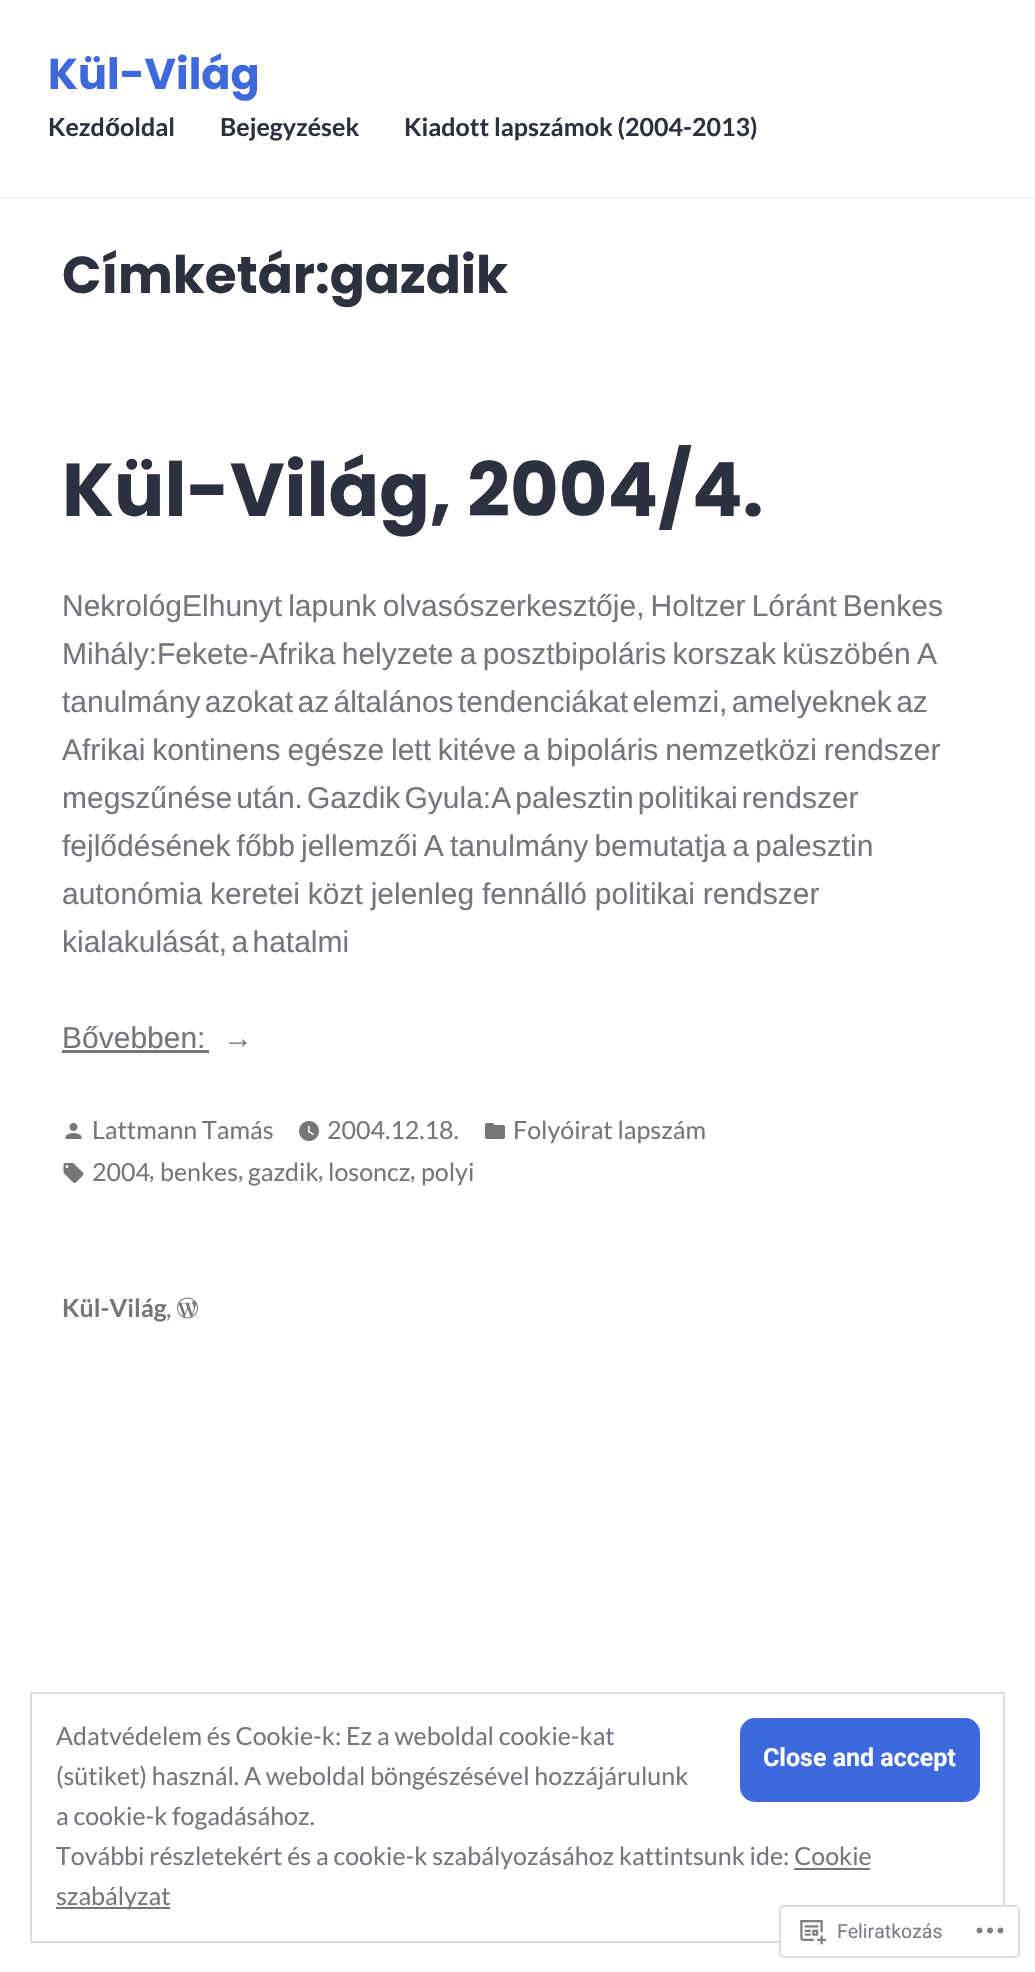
void draw(SkCanvas* canvas) {
    SkPaint paint;
    paint.setAntiAlias(true);
    auto spacedText = [&](const char* s, float x, float y, const SkFont& font, const SkPaint& ink, float letter, float word) {
        std::vector<SkGlyphID> glyphs(font.countText(s, strlen(s), SkTextEncoding::kUTF8));
        std::vector<float> xs(glyphs.size());
        font.textToGlyphs(s, strlen(s), SkTextEncoding::kUTF8, glyphs);
        font.getXPos(glyphs, xs, x);
        float extra = 0;
        for (size_t i = 0; i < glyphs.size(); i++) {
            xs[i] += extra;
            extra += letter + word * (glyphs[i] == font.unicharToGlyph(' '));
        }
        canvas->drawTextBlob(SkTextBlob::MakeFromPosHGlyphs(glyphs, xs, y, font), 0, 0, ink);
    };
    canvas->clear(0xFFFFFFFF);
    paint.setColor(0xFFF3F3F3);
    canvas->drawRect(SkRect::MakeXYWH(0, 197, 1035, 2), paint);
    SkFont font1(fontMgr->matchFamilyStyle("Poppins", SkFontStyle::Bold()), 43);
    font1.setSubpixel(true);
    paint.setColor(0xFF3E69DC);
    canvas->drawString("Kül-Világ", 48, 89, font1, paint);
    SkFont font2(fontMgr->matchFamilyStyle("Lato", SkFontStyle::Bold()), 25);
    font2.setSubpixel(true);
    paint.setColor(0xFF2C313F);
    canvas->drawString("Kezd", 48, 136, font2, paint);
    SkFont font3(fontMgr->matchFamilyStyle("Liberation Sans", SkFontStyle::Bold()), 25);
    font3.setSubpixel(true);
    canvas->drawString("ő", 105, 136, font3, paint);
    canvas->drawString("oldal", 120, 136, font2, paint);
    canvas->drawString("Bejegyzések", 220, 136, font2, paint);
    canvas->drawString("Kiadott lapszámok (2004-2013)", 404, 136, font2, paint);
    SkFont font4(fontMgr->matchFamilyStyle("Poppins", SkFontStyle::Bold()), 51.75f);
    font4.setSubpixel(true);
    canvas->drawString("Címketár:gazdik", 62, 293, font4, paint);
    SkFont font5(fontMgr->matchFamilyStyle("Poppins", SkFontStyle::Bold()), 74.75f);
    font5.setSubpixel(true);
    canvas->drawString("Kül-Világ, 2004/4.", 62, 516, font5, paint);
    SkFont font6(fontMgr->matchFamilyStyle("Liberation Sans", SkFontStyle::Normal()), 30);
    font6.setSubpixel(true);
    paint.setColor(0xFF74767E);
    spacedText("NekrológElhunyt lapunk olvasószerkesztője, Holtzer Lóránt Benkes", 62, 616, font6, paint, 0, -2.25f);
    spacedText("Mihály:Fekete-Afrika helyzete a posztbipoláris korszak küszöbén A", 62, 664, font6, paint, 0, -2);
    spacedText("tanulmány azokat az általános tendenciákat elemzi, amelyeknek az", 62, 712, font6, paint, 0, -4);
    spacedText("Afrikai kontinens egésze lett kitéve a bipoláris nemzetközi rendszer", 62, 760, font6, paint, 0, -1.5f);
    spacedText("megszűnése után. Gazdik Gyula:A palesztin politikai rendszer", 62, 808, font6, paint, 0, -4.25f);
    spacedText("fejlődésének főbb jellemzői A tanulmány bemutatja a palesztin", 62, 856, font6, paint, 0, -2.25f);
    spacedText("autonómia keretei közt jelenleg fennálló politikai rendszer", 62, 904, font6, paint, 0, -0.5f);
    spacedText("kialakulását, a hatalmi", 62, 952, font6, paint, 0, -4);
    canvas->drawString("Bővebben:", 62, 1048, font6, paint);
    canvas->drawRect(SkRect::MakeXYWH(62, 1050, 147, 3), paint);
    canvas->drawString("→", 223, 1048, font6, paint);
    canvas->drawImageRect(SkImages::DeferredFromEncodedData(SkData::MakeFromFileName("img1.png")), SkRect::MakeXYWH(65, 1123, 17, 16), SkSamplingOptions());
    SkFont font7(fontMgr->matchFamilyStyle("Lato", SkFontStyle::Normal()), 25);
    font7.setSubpixel(true);
    paint.setColor(0xFF767676);
    canvas->drawString("Lattmann Tamás", 92, 1139, font7, paint);
    canvas->drawImageRect(SkImages::DeferredFromEncodedData(SkData::MakeFromFileName("img2.png")), SkRect::MakeXYWH(299, 1121, 20, 20), SkSamplingOptions());
    canvas->drawString("2004.12.18.", 327, 1139, font7, paint);
    canvas->drawImageRect(SkImages::DeferredFromEncodedData(SkData::MakeFromFileName("img3.png")), SkRect::MakeXYWH(485, 1123, 20, 16), SkSamplingOptions());
    canvas->drawString("Folyóirat lapszám", 513, 1139, font7, paint);
    canvas->drawImageRect(SkImages::DeferredFromEncodedData(SkData::MakeFromFileName("img4.png")), SkRect::MakeXYWH(63, 1163, 21, 20), SkSamplingOptions());
    canvas->drawString("2004", 92, 1181, font7, paint);
    canvas->drawString(",", 149, 1179, font7, paint);
    canvas->drawString("benkes", 160, 1181, font7, paint);
    canvas->drawString(",", 238, 1179, font7, paint);
    canvas->drawString("gazdik", 248, 1181, font7, paint);
    canvas->drawString(",", 318, 1179, font7, paint);
    canvas->drawString("losoncz", 328, 1181, font7, paint);
    canvas->drawString(",", 410, 1179, font7, paint);
    canvas->drawString("polyi", 421, 1181, font7, paint);
    canvas->drawString("Kül-Világ", 62, 1317, font2, paint);
    canvas->drawString(",", 166, 1317, font7, paint);
    canvas->drawImageRect(SkImages::DeferredFromEncodedData(SkData::MakeFromFileName("img5.png")), SkRect::MakeXYWH(177, 1297, 21, 22), SkSamplingOptions());
    paint.setStyle(SkPaint::kStroke_Style);
    paint.setStrokeWidth(2);
    paint.setColor(0xFFDDDDDD);
    canvas->drawRect(SkRect::MakeXYWH(31, 1693, 973, 249), paint);
    paint.setStyle(SkPaint::kFill_Style);
    paint.setColor(0xFF74767E);
    canvas->drawString("Adatvédelem és Cookie-k: Ez a weboldal cookie-kat", 56, 1745, font7, paint);
    paint.setColor(0xFF3E69DC);
    canvas->drawRoundRect(SkRect::MakeXYWH(740, 1718, 240, 84), 15, 15, paint);
    SkFont font8(fontMgr->matchFamilyStyle("Roboto", SkFontStyle::Bold()), 25);
    font8.setSubpixel(true);
    paint.setColor(0xFFFFFFFF);
    canvas->drawString("Close and accept", 763, 1766, font8, paint);
    paint.setColor(0xFF74767E);
    canvas->drawString("(sütiket) használ. A weboldal böngészésével hozzájárulunk", 56, 1785, font7, paint);
    canvas->drawString("a cookie-k fogadásához.", 56, 1825, font7, paint);
    canvas->drawString("További részletekért és a cookie-k szabályozásához kattintsunk ide: Cookie", 56, 1865, font7, paint);
    canvas->drawRect(SkRect::MakeXYWH(56, 1907, 114, 2), paint);
    canvas->drawString("szabályzat", 56, 1905, font7, paint);
    canvas->drawRect(SkRect::MakeXYWH(794, 1868, 76, 2), paint);
    paint.setColor(0xFAFFFFFF);
    canvas->drawRoundRect(SkRect::MakeXYWH(780, 1906, 239, 51), 4, 4, paint);
    paint.setStyle(SkPaint::kStroke_Style);
    paint.setColor(0xFFDDDDDF);
    canvas->drawRoundRect(SkRect::MakeXYWH(780, 1906, 239, 51), 4, 4, paint);
    canvas->drawImageRect(SkImages::DeferredFromEncodedData(SkData::MakeFromFileName("img6.png")), SkRect::MakeXYWH(800, 1920, 27, 25), SkSamplingOptions());
    SkFont font9(fontMgr->matchFamilyStyle("Roboto", SkFontStyle::Normal()), 19.5f);
    font9.setSubpixel(true);
    paint.setStyle(SkPaint::kFill_Style);
    paint.setColor(0xFF7B7F85);
    canvas->drawString("Feliratkozás", 837, 1938, font9, paint);
    canvas->drawImageRect(SkImages::DeferredFromEncodedData(SkData::MakeFromFileName("img7.png")), SkRect::MakeXYWH(976, 1927, 28, 7), SkSamplingOptions());
}
